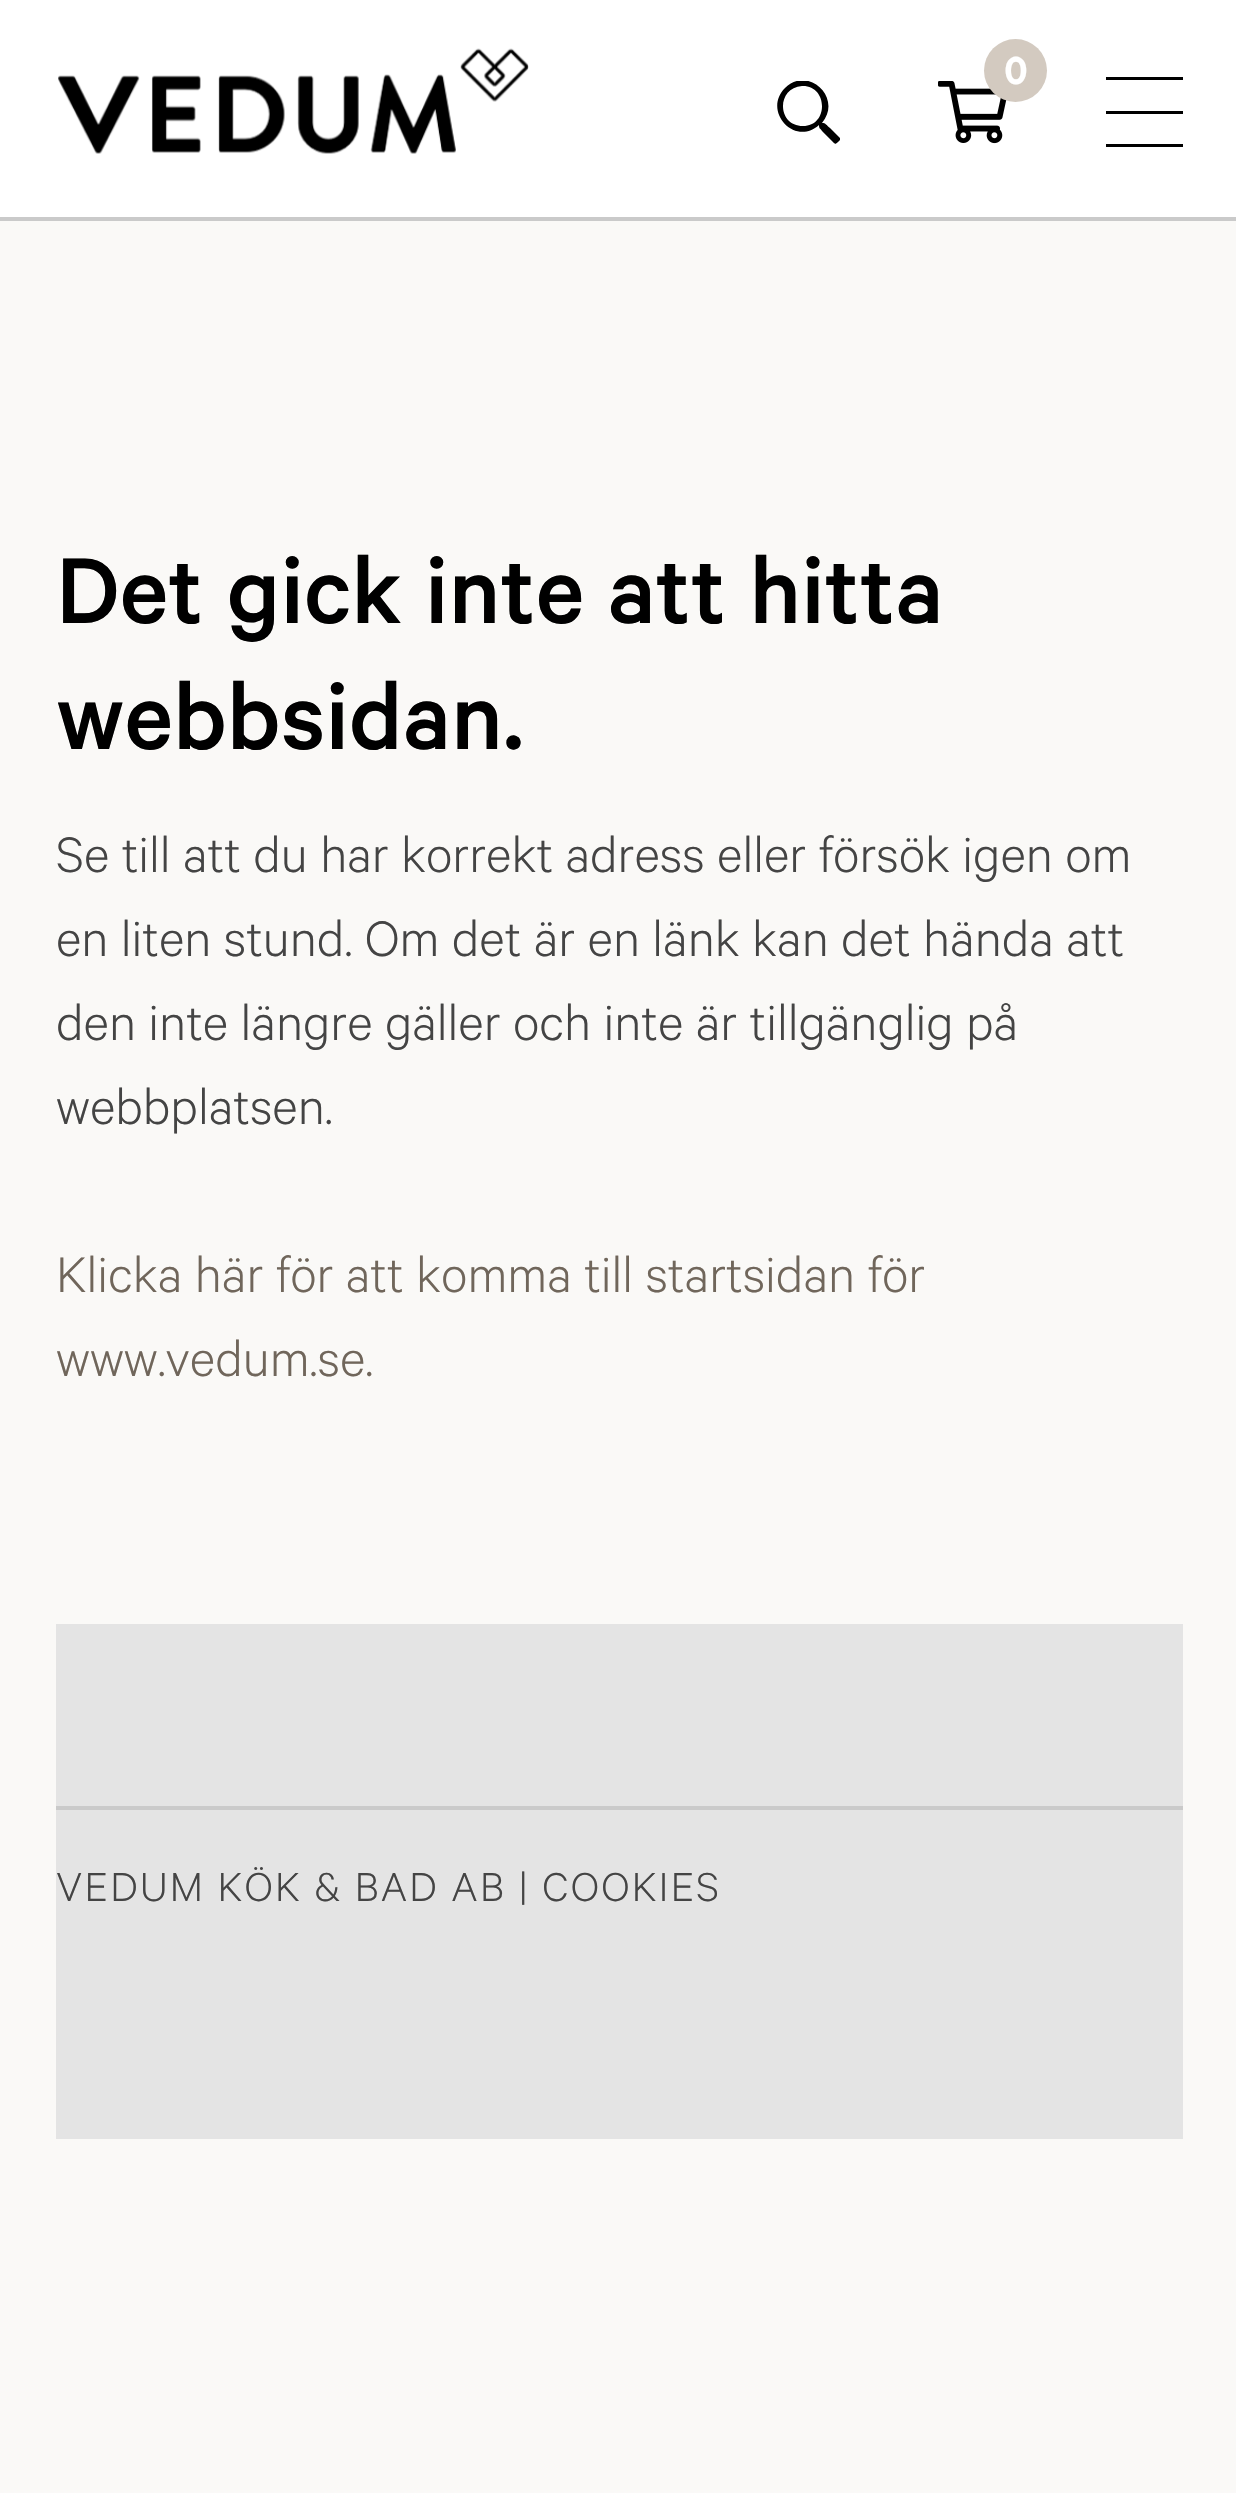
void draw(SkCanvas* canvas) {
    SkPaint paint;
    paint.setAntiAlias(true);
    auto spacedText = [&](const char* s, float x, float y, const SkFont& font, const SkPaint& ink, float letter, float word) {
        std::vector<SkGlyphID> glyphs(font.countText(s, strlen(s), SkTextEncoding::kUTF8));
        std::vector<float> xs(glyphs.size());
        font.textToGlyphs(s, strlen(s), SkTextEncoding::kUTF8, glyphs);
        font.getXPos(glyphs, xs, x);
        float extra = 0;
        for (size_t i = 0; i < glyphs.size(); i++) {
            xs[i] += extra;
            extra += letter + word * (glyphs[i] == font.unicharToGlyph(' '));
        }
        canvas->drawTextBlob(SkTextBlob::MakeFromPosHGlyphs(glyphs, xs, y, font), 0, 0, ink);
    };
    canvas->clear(0xFFFAF9F7);
    paint.setColor(0xFFFFFFFF);
    canvas->drawRect(SkRect::MakeXYWH(0, 0, 1236, 217), paint);
    paint.setColor(0xFFCACACA);
    canvas->drawRect(SkRect::MakeXYWH(0, 217, 1236, 4), paint);
    canvas->drawImageRect(SkImages::DeferredFromEncodedData(SkData::MakeFromFileName("img1.png")), SkRect::MakeXYWH(58, 48, 471, 106), SkSamplingOptions());
    canvas->drawImageRect(SkImages::DeferredFromEncodedData(SkData::MakeFromFileName("img2.png")), SkRect::MakeXYWH(938, 81, 69, 63), SkSamplingOptions());
    paint.setColor(0xFFD3CAC0);
    canvas->drawCircle(1015.5f, 70.5f, 31.5f, paint);
    SkFont font1(fontMgr->matchFamilyStyle("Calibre", SkFontStyle::Bold()), 42);
    font1.setSubpixel(true);
    paint.setColor(0xFFFFFFFF);
    canvas->drawString("0", 1004, 84, font1, paint);
    canvas->save();
    canvas->clipRect(SkRect::MakeXYWH(777, 81, 63, 63));
    paint.setColor(0xFF000000);
    canvas->drawPath(SkPathBuilder(SkPathFillType::kEvenOdd).moveTo(840, 138).lineTo(830, 128).cubicTo(826, 125, 826, 123, 822, 123).cubicTo(843, 98, 808, 65, 785, 88).cubicTo(762, 111, 795, 147, 819, 125).cubicTo(819, 129, 820, 128, 822, 131).lineTo(832, 141).cubicTo(835, 144, 835, 145, 838, 142).cubicTo(839, 141, 841, 140, 840, 138).close().moveTo(803, 126).cubicTo(777, 126, 776, 88, 802, 86).cubicTo(828, 85, 829, 126, 803, 126).close().detach(), paint);
    canvas->restore();
    canvas->drawRect(SkRect::MakeXYWH(1106, 77, 77, 3), paint);
    canvas->drawRect(SkRect::MakeXYWH(1106, 111, 77, 3), paint);
    canvas->drawRect(SkRect::MakeXYWH(1106, 144, 77, 3), paint);
    SkFont font2(fontMgr->matchFamilyStyle("Calibre", SkFontStyle(500, SkFontStyle::kNormal_Width, SkFontStyle::kUpright_Slant)), 105);
    font2.setSubpixel(true);
    canvas->drawString("Det gick inte att hitta", 56, 623, font2, paint);
    canvas->drawString("webbsidan.", 56, 749, font2, paint);
    SkFont font3(fontMgr->matchFamilyStyle("Calibre", SkFontStyle(300, SkFontStyle::kNormal_Width, SkFontStyle::kUpright_Slant)), 56);
    font3.setSubpixel(true);
    paint.setColor(0xFF444444);
    canvas->drawString("Se till att du har korrekt adress eller försök igen om", 56, 872, font3, paint);
    canvas->drawString("en liten stund. Om det är en länk kan det hända att", 56, 956, font3, paint);
    canvas->drawString("den inte längre gäller och inte är tillgänglig på", 56, 1040, font3, paint);
    canvas->drawString("webbplatsen.", 56, 1124, font3, paint);
    paint.setColor(0xFF70665B);
    canvas->drawString("Klicka här för att komma till startsidan för", 56, 1292, font3, paint);
    canvas->drawString("www.vedum.se.", 56, 1376, font3, paint);
    paint.setColor(0xFFE4E4E4);
    canvas->drawRect(SkRect::MakeXYWH(56, 1624, 1127, 515), paint);
    paint.setColor(0xFFCACACA);
    canvas->drawRect(SkRect::MakeXYWH(56, 1806, 1127, 4), paint);
    SkFont font4(fontMgr->matchFamilyStyle("Calibre", SkFontStyle(300, SkFontStyle::kNormal_Width, SkFontStyle::kUpright_Slant)), 45.5f);
    font4.setSubpixel(true);
    paint.setColor(0xFF444444);
    spacedText("VEDUM KÖK & BAD AB | COOKIES", 56, 1901, font4, paint, 2.25f, 0);
}
